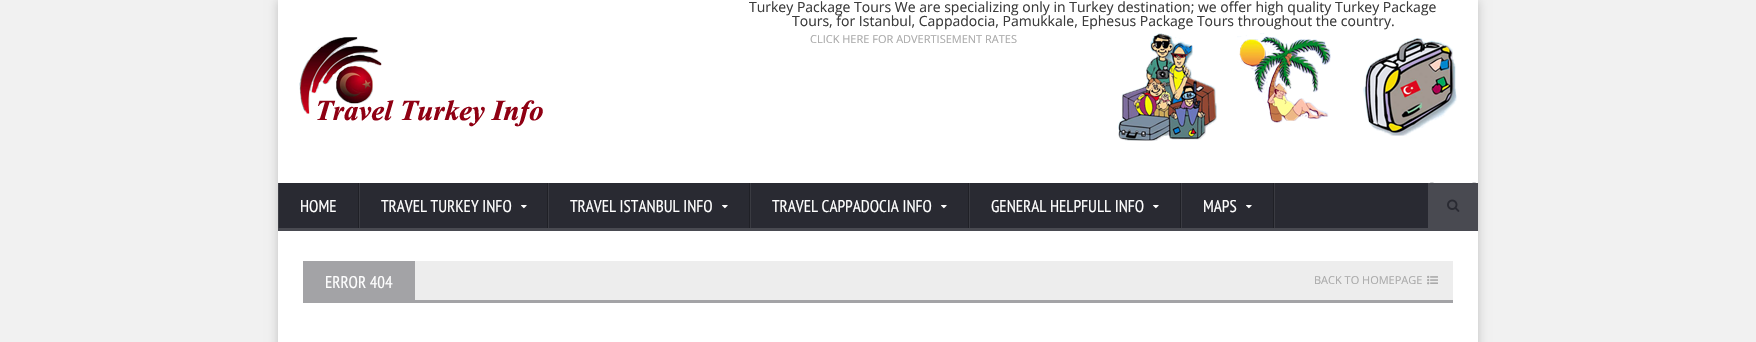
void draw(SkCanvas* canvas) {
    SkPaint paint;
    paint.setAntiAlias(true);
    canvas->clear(0xFFF1F1F1);
    paint.setColor(0x33000000);
    paint.setMaskFilter(SkMaskFilter::MakeBlur(kNormal_SkBlurStyle, 5));
    canvas->drawRect(SkRect::MakeXYWH(278, 0, 1200, 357), paint);
    paint.setMaskFilter(nullptr);
    paint.setColor(0xFFFFFFFF);
    canvas->drawRect(SkRect::MakeXYWH(278, 0, 1200, 342), paint);
    SkFont font1(fontMgr->matchFamilyStyle("Open Sans", SkFontStyle::Normal()), 14);
    font1.setSubpixel(true);
    paint.setColor(0xFF3B3B3B);
    canvas->drawString("Turkey Package Tours We are specializing only in Turkey destination; we offer high quality Turkey Package", 749, 12, font1, paint);
    canvas->drawString("Tours, for Istanbul, Cappadocia, Pamukkale, Ephesus Package Tours throughout the country.", 792, 26, font1, paint);
    SkFont font2(fontMgr->matchFamilyStyle("Open Sans", SkFontStyle::Normal()), 11);
    font2.setSubpixel(true);
    paint.setColor(0xFFAAAAAA);
    canvas->drawString("CLICK HERE FOR ADVERTISEMENT RATES", 810, 43, font2, paint);
    canvas->drawImageRect(SkImages::DeferredFromEncodedData(SkData::MakeFromFileName("img1.png")), SkRect::MakeXYWH(1118, 33, 99, 108), SkSamplingOptions());
    canvas->drawImageRect(SkImages::DeferredFromEncodedData(SkData::MakeFromFileName("img2.png")), SkRect::MakeXYWH(1237, 33, 94, 90), SkSamplingOptions());
    canvas->drawImageRect(SkImages::DeferredFromEncodedData(SkData::MakeFromFileName("img3.png")), SkRect::MakeXYWH(1363, 38, 94, 98), SkSamplingOptions());
    canvas->drawImageRect(SkImages::DeferredFromEncodedData(SkData::MakeFromFileName("img4.png")), SkRect::MakeXYWH(299, 37, 244, 90), SkSamplingOptions());
    paint.setColor(0xFF292A32);
    canvas->drawRect(SkRect::MakeXYWH(279, 183, 1149, 45), paint);
    paint.setColor(0xFF494A51);
    canvas->drawRect(SkRect::MakeXYWH(278, 228, 1200, 3), paint);
    paint.setColor(0xFF1F2026);
    canvas->drawRect(SkRect::MakeXYWH(358, 183, 1, 45), paint);
    paint.setColor(0xFF3E3F46);
    canvas->drawRect(SkRect::MakeXYWH(278, 183, 1, 45), paint);
    SkFont font3(fontMgr->matchFamilyStyle("PT Sans Narrow", SkFontStyle::Normal()), 17);
    font3.setSubpixel(true);
    paint.setColor(0xFFFFFFFF);
    canvas->drawString("HOME", 300, 212, font3, paint);
    paint.setColor(0xFF1F2026);
    canvas->drawRect(SkRect::MakeXYWH(547, 183, 1, 45), paint);
    paint.setColor(0xFF3A3B42);
    canvas->drawRect(SkRect::MakeXYWH(359, 183, 1, 45), paint);
    paint.setColor(0xFFFFFFFF);
    canvas->drawString("TRAVEL TURKEY INFO", 381, 212, font3, paint);
    canvas->drawImageRect(SkImages::DeferredFromEncodedData(SkData::MakeFromFileName("img5.png")), SkRect::MakeXYWH(521, 205, 6, 4), SkSamplingOptions());
    paint.setColor(0xFF1F2026);
    canvas->drawRect(SkRect::MakeXYWH(749, 183, 1, 45), paint);
    paint.setColor(0xFF3A3B42);
    canvas->drawRect(SkRect::MakeXYWH(548, 183, 1, 45), paint);
    paint.setColor(0xFFFFFFFF);
    canvas->drawString("TRAVEL ISTANBUL INFO", 570, 212, font3, paint);
    canvas->drawImageRect(SkImages::DeferredFromEncodedData(SkData::MakeFromFileName("img5.png")), SkRect::MakeXYWH(722, 205, 6, 4), SkSamplingOptions());
    paint.setColor(0xFF1F2026);
    canvas->drawRect(SkRect::MakeXYWH(968, 183, 1, 45), paint);
    paint.setColor(0xFF3A3B42);
    canvas->drawRect(SkRect::MakeXYWH(750, 183, 1, 45), paint);
    paint.setColor(0xFFFFFFFF);
    canvas->drawString("TRAVEL CAPPADOCIA INFO", 772, 212, font3, paint);
    canvas->drawImageRect(SkImages::DeferredFromEncodedData(SkData::MakeFromFileName("img5.png")), SkRect::MakeXYWH(941, 205, 6, 4), SkSamplingOptions());
    paint.setColor(0xFF1F2026);
    canvas->drawRect(SkRect::MakeXYWH(1180, 183, 1, 45), paint);
    paint.setColor(0xFF3A3B42);
    canvas->drawRect(SkRect::MakeXYWH(969, 183, 1, 45), paint);
    paint.setColor(0xFFFFFFFF);
    canvas->drawString("GENERAL HELPFULL INFO", 991, 212, font3, paint);
    canvas->drawImageRect(SkImages::DeferredFromEncodedData(SkData::MakeFromFileName("img5.png")), SkRect::MakeXYWH(1153, 205, 6, 4), SkSamplingOptions());
    paint.setColor(0xFF3A3B42);
    canvas->drawRect(SkRect::MakeXYWH(1274, 183, 1, 45), paint);
    paint.setColor(0xFF1F2026);
    canvas->drawRect(SkRect::MakeXYWH(1273, 183, 1, 45), paint);
    paint.setColor(0xFF3A3B42);
    canvas->drawRect(SkRect::MakeXYWH(1181, 183, 1, 45), paint);
    paint.setColor(0xFFFFFFFF);
    canvas->drawString("MAPS", 1203, 212, font3, paint);
    canvas->drawImageRect(SkImages::DeferredFromEncodedData(SkData::MakeFromFileName("img5.png")), SkRect::MakeXYWH(1246, 205, 6, 4), SkSamplingOptions());
    paint.setColor(0xFF494A51);
    canvas->drawRect(SkRect::MakeXYWH(1428, 183, 50, 45), paint);
    paint.setColor(0xFF47484F);
    canvas->drawPath(SkPathBuilder().moveTo(1430, 185).lineTo(1476, 185).cubicTo(1477, 185, 1478, 186, 1478, 187).cubicTo(1478, 181, 1475, 183, 1468, 183).lineTo(1438, 183).cubicTo(1431, 183, 1428, 181, 1428, 187).cubicTo(1428, 186, 1429, 185, 1430, 185).close().detach(), paint);
    canvas->drawImageRect(SkImages::DeferredFromEncodedData(SkData::MakeFromFileName("img6.png")), SkRect::MakeXYWH(1447, 199, 13, 13), SkSamplingOptions());
    paint.setColor(0xFFEDEDED);
    canvas->drawRect(SkRect::MakeXYWH(415, 261, 1038, 39), paint);
    paint.setColor(0xFFA3A3A6);
    canvas->drawRect(SkRect::MakeXYWH(303, 261, 112, 39), paint);
    paint.setColor(0xFFFFFFFF);
    canvas->drawString("ERROR 404", 325, 288, font3, paint);
    paint.setColor(0xFFA3A3A6);
    canvas->drawRect(SkRect::MakeXYWH(303, 300, 1150, 3), paint);
    paint.setColor(0xFFAAAAAA);
    canvas->drawString("BACK TO HOMEPAGE", 1314, 284, font2, paint);
    canvas->drawImageRect(SkImages::DeferredFromEncodedData(SkData::MakeFromFileName("img7.png")), SkRect::MakeXYWH(1427, 275, 11, 10), SkSamplingOptions());
}
